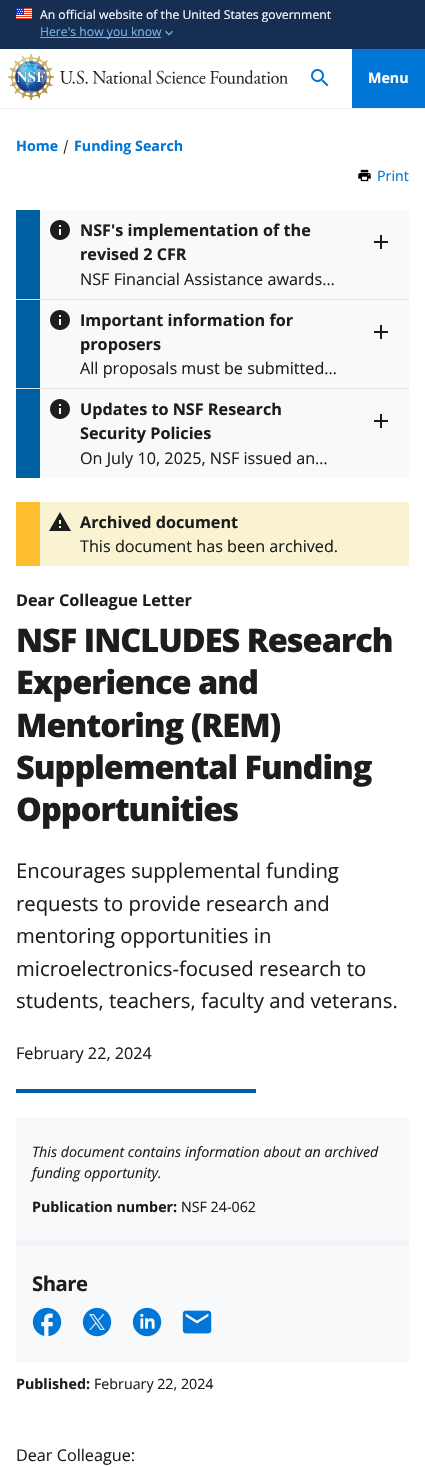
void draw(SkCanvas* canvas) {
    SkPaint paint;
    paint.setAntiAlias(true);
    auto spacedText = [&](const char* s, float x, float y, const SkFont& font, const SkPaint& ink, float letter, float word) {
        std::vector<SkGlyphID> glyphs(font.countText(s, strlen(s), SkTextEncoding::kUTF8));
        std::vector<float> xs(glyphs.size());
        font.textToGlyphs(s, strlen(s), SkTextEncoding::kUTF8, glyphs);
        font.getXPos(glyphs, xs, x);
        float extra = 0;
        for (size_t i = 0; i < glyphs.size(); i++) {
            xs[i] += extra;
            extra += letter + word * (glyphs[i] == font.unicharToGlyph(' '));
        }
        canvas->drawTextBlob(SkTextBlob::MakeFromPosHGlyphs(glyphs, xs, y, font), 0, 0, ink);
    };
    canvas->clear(0xFFFFFFFF);
    paint.setColor(0xFF162E51);
    canvas->drawRect(SkRect::MakeXYWH(0, 0, 425, 49), paint);
    canvas->drawImageRect(SkImages::DeferredFromEncodedData(SkData::MakeFromFileName("img1.png")), SkRect::MakeXYWH(16, 8, 16, 11), SkSamplingOptions());
    SkFont font1(fontMgr->matchFamilyStyle("Open Sans", SkFontStyle::Normal()), 12.2f);
    font1.setSubpixel(true);
    paint.setColor(0xFFFFFFFF);
    canvas->drawString("An official website of the United States government", 40, 19, font1, paint);
    paint.setColor(0xFF73B3E7);
    canvas->drawRect(SkRect::MakeXYWH(40, 37, 121, 1), paint);
    canvas->drawString("Here's how you know", 40, 36, font1, paint);
    canvas->drawImageRect(SkImages::DeferredFromEncodedData(SkData::MakeFromFileName("img2.png")), SkRect::MakeXYWH(165, 30, 8, 6), SkSamplingOptions());
    paint.setColor(0xFFF1F3F6);
    canvas->drawRect(SkRect::MakeXYWH(0, 108, 425, 1), paint);
    canvas->drawImageRect(SkImages::DeferredFromEncodedData(SkData::MakeFromFileName("img3.png")), SkRect::MakeXYWH(8, 54, 46, 46), SkSamplingOptions());
    canvas->drawImageRect(SkImages::DeferredFromEncodedData(SkData::MakeFromFileName("img4.png")), SkRect::MakeXYWH(60, 70, 228, 14), SkSamplingOptions());
    canvas->drawImageRect(SkImages::DeferredFromEncodedData(SkData::MakeFromFileName("img5.png")), SkRect::MakeXYWH(311, 69, 18, 18), SkSamplingOptions());
    paint.setColor(0xFF0076D6);
    canvas->drawRect(SkRect::MakeXYWH(352, 49, 73, 59), paint);
    SkFont font2(fontMgr->matchFamilyStyle("Open Sans", SkFontStyle::Bold()), 14.25f);
    font2.setSubpixel(true);
    paint.setColor(0xFFFFFFFF);
    canvas->drawString("Menu", 368, 83, font2, paint);
    paint.setColor(0xFF0076D6);
    canvas->drawString("Home", 16, 151, font2, paint);
    paint.setColor(0xFF1B1B1B);
    canvas->drawPath(SkPathBuilder().moveTo(67, 140).lineTo(68, 140).lineTo(64.5f, 154).lineTo(63.5f, 153.5f).close().detach(), paint);
    paint.setColor(0xFF0076D6);
    canvas->drawString("Funding Search", 74, 151, font2, paint);
    canvas->drawImageRect(SkImages::DeferredFromEncodedData(SkData::MakeFromFileName("img6.png")), SkRect::MakeXYWH(358, 169, 13, 13), SkSamplingOptions());
    SkFont font3(fontMgr->matchFamilyStyle("Open Sans", SkFontStyle::Normal()), 14.25f);
    font3.setSubpixel(true);
    canvas->drawString("Print", 377, 181, font3, paint);
    paint.setColor(0xFFDFE1E2);
    canvas->drawRect(SkRect::MakeXYWH(16, 299, 393, 1), paint);
    paint.setColor(0xFFF7F9FA);
    canvas->drawRect(SkRect::MakeXYWH(40, 210, 369, 89), paint);
    paint.setColor(0xFF005EA2);
    canvas->drawRect(SkRect::MakeXYWH(16, 210, 24, 89), paint);
    canvas->drawImageRect(SkImages::DeferredFromEncodedData(SkData::MakeFromFileName("img7.png")), SkRect::MakeXYWH(50, 220, 20, 20), SkSamplingOptions());
    SkFont font4(fontMgr->matchFamilyStyle("Open Sans", SkFontStyle::Bold()), 16.2f);
    font4.setSubpixel(true);
    paint.setColor(0xFF1C1D1F);
    canvas->drawString("NSF's implementation of the", 80, 236, font4, paint);
    canvas->drawString("revised 2 CFR", 80, 260, font4, paint);
    SkFont font5(fontMgr->matchFamilyStyle("Open Sans", SkFontStyle::Normal()), 16.2f);
    font5.setSubpixel(true);
    canvas->drawString("NSF Financial Assistance awards…", 80, 285, font5, paint);
    canvas->drawImageRect(SkImages::DeferredFromEncodedData(SkData::MakeFromFileName("img8.png")), SkRect::MakeXYWH(374, 235, 14, 14), SkSamplingOptions());
    paint.setColor(0xFFDFE1E2);
    canvas->drawRect(SkRect::MakeXYWH(16, 388, 393, 1), paint);
    paint.setColor(0xFFF7F9FA);
    canvas->drawRect(SkRect::MakeXYWH(40, 300, 369, 88), paint);
    paint.setColor(0xFF005EA2);
    canvas->drawRect(SkRect::MakeXYWH(16, 300, 24, 88), paint);
    canvas->drawImageRect(SkImages::DeferredFromEncodedData(SkData::MakeFromFileName("img7.png")), SkRect::MakeXYWH(50, 310, 20, 20), SkSamplingOptions());
    paint.setColor(0xFF1C1D1F);
    canvas->drawString("Important information for", 80, 326, font4, paint);
    canvas->drawString("proposers", 80, 350, font4, paint);
    canvas->drawString("All proposals must be submitted…", 80, 374, font5, paint);
    canvas->drawImageRect(SkImages::DeferredFromEncodedData(SkData::MakeFromFileName("img8.png")), SkRect::MakeXYWH(374, 325, 14, 14), SkSamplingOptions());
    paint.setColor(0xFFF7F9FA);
    canvas->drawRect(SkRect::MakeXYWH(40, 389, 369, 89), paint);
    paint.setColor(0xFF005EA2);
    canvas->drawRect(SkRect::MakeXYWH(16, 389, 24, 89), paint);
    canvas->drawImageRect(SkImages::DeferredFromEncodedData(SkData::MakeFromFileName("img7.png")), SkRect::MakeXYWH(50, 399, 20, 20), SkSamplingOptions());
    paint.setColor(0xFF1C1D1F);
    canvas->drawString("Updates to NSF Research", 80, 415, font4, paint);
    canvas->drawString("Security Policies", 80, 439, font4, paint);
    canvas->drawString("On July 10, 2025, NSF issued an…", 80, 464, font5, paint);
    canvas->drawImageRect(SkImages::DeferredFromEncodedData(SkData::MakeFromFileName("img8.png")), SkRect::MakeXYWH(374, 414, 14, 14), SkSamplingOptions());
    paint.setColor(0xFFFAF3D1);
    canvas->drawRect(SkRect::MakeXYWH(40, 502, 369, 64), paint);
    paint.setColor(0xFFFFBE2E);
    canvas->drawRect(SkRect::MakeXYWH(16, 502, 24, 64), paint);
    canvas->drawImageRect(SkImages::DeferredFromEncodedData(SkData::MakeFromFileName("img9.png")), SkRect::MakeXYWH(49, 512, 22, 19), SkSamplingOptions());
    paint.setColor(0xFF1C1D1F);
    canvas->drawString("Archived document", 80, 528, font4, paint);
    canvas->drawString("This document has been archived.", 80, 552, font5, paint);
    canvas->drawString("Dear Colleague Letter", 16, 606, font4, paint);
    SkFont font6(fontMgr->matchFamilyStyle("Open Sans", SkFontStyle(800, SkFontStyle::kNormal_Width, SkFontStyle::kUpright_Slant)), 32.5f);
    font6.setSubpixel(true);
    spacedText("NSF INCLUDES Research", 16, 652, font6, paint, -1, 0);
    spacedText("Experience and", 16, 694, font6, paint, -1, 0);
    spacedText("Mentoring (REM)", 16, 737, font6, paint, -1, 0);
    spacedText("Supplemental Funding", 16, 779, font6, paint, -1, 0);
    spacedText("Opportunities", 16, 821, font6, paint, -1, 0);
    SkFont font7(fontMgr->matchFamilyStyle("Open Sans", SkFontStyle::Normal()), 20.3f);
    font7.setSubpixel(true);
    canvas->drawString("Encourages supplemental funding", 16, 878, font7, paint);
    canvas->drawString("requests to provide research and", 16, 911, font7, paint);
    canvas->drawString("mentoring opportunities in", 16, 943, font7, paint);
    canvas->drawString("microelectronics-focused research to", 16, 976, font7, paint);
    canvas->drawString("students, teachers, faculty and veterans.", 16, 1008, font7, paint);
    canvas->drawString("February 22, 2024", 16, 1059, font5, paint);
    paint.setColor(0xFF005EA2);
    canvas->drawRect(SkRect::MakeXYWH(16, 1089, 240, 4), paint);
    paint.setColor(0xFFF7F9FA);
    canvas->drawRect(SkRect::MakeXYWH(16, 1117, 393, 124), paint);
    paint.setColor(0xFFF1F3F6);
    canvas->drawRect(SkRect::MakeXYWH(16, 1241, 393, 5), paint);
    SkFont font8(fontMgr->matchFamilyStyle("Open Sans", SkFontStyle::Italic()), 14.25f);
    font8.setSubpixel(true);
    paint.setColor(0xFF1C1D1F);
    canvas->drawString("This document contains information about an archived", 32, 1157, font8, paint);
    canvas->drawString("funding opportunity.", 32, 1178, font8, paint);
    canvas->drawString("Publication number:", 32, 1212, font2, paint);
    canvas->drawString("NSF 24-062", 181, 1212, font3, paint);
    paint.setColor(0xFFF7F9FA);
    canvas->drawRect(SkRect::MakeXYWH(16, 1246, 393, 117), paint);
    SkFont font9(fontMgr->matchFamilyStyle("Open Sans", SkFontStyle::Bold()), 20.3f);
    font9.setSubpixel(true);
    paint.setColor(0xFF1C1D1F);
    spacedText("Share", 32, 1291, font9, paint, -0.5f, 0);
    canvas->drawImageRect(SkImages::DeferredFromEncodedData(SkData::MakeFromFileName("img10.png")), SkRect::MakeXYWH(32, 1307, 30, 30), SkSamplingOptions());
    canvas->drawImageRect(SkImages::DeferredFromEncodedData(SkData::MakeFromFileName("img11.png")), SkRect::MakeXYWH(82, 1307, 30, 30), SkSamplingOptions());
    canvas->drawImageRect(SkImages::DeferredFromEncodedData(SkData::MakeFromFileName("img12.png")), SkRect::MakeXYWH(132, 1307, 30, 30), SkSamplingOptions());
    canvas->drawImageRect(SkImages::DeferredFromEncodedData(SkData::MakeFromFileName("img13.png")), SkRect::MakeXYWH(182, 1310, 30, 24), SkSamplingOptions());
    canvas->drawString("Published:", 16, 1389, font2, paint);
    canvas->drawString("February 22, 2024", 94, 1389, font3, paint);
    canvas->drawString("Dear Colleague:", 16, 1461, font5, paint);
}
